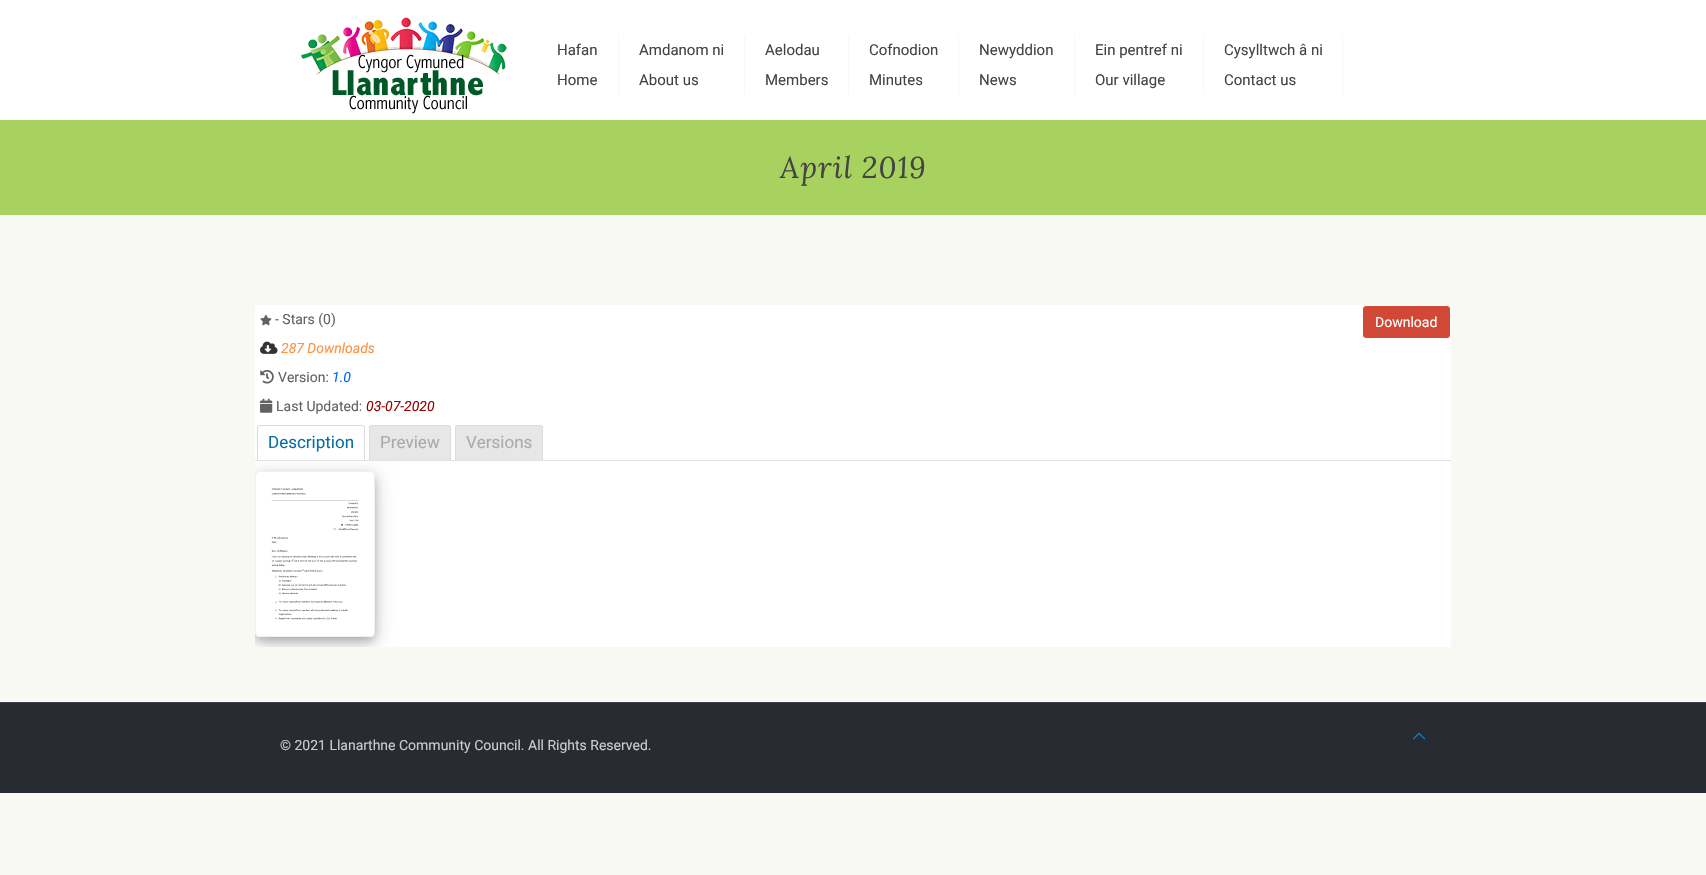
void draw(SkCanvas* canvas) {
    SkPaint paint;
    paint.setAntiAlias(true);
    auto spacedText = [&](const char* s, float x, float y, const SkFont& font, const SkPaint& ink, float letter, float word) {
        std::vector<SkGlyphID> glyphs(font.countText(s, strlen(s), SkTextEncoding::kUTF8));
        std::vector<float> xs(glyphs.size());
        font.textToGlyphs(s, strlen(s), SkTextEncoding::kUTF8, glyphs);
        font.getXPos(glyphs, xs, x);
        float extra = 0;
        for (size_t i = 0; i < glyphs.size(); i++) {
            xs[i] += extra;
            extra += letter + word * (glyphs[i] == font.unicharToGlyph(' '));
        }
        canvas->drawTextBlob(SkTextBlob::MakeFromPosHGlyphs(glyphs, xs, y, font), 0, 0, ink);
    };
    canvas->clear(0xFFF9F9F3);
    paint.setColor(0xFFFFFFFF);
    canvas->drawRect(SkRect::MakeXYWH(0, 0, 1706, 120), paint);
    canvas->drawImageRect(SkImages::DeferredFromEncodedData(SkData::MakeFromFileName("img1.png")), SkRect::MakeXYWH(301, 17, 206, 97), SkSamplingOptions());
    paint.setColor(0xFFF7F7F7);
    canvas->drawRect(SkRect::MakeXYWH(618, 35, 1, 60), paint);
    SkFont font1(fontMgr->matchFamilyStyle("Roboto", SkFontStyle::Normal()), 15);
    font1.setSubpixel(true);
    paint.setColor(0xFF444444);
    canvas->drawString("Hafan", 557, 55, font1, paint);
    canvas->drawString("Home", 557, 85, font1, paint);
    paint.setColor(0xFFF7F7F7);
    canvas->drawRect(SkRect::MakeXYWH(744, 35, 1, 60), paint);
    paint.setColor(0xFF444444);
    canvas->drawString("Amdanom ni", 639, 55, font1, paint);
    canvas->drawString("About us", 639, 85, font1, paint);
    paint.setColor(0xFFF7F7F7);
    canvas->drawRect(SkRect::MakeXYWH(848, 35, 1, 60), paint);
    paint.setColor(0xFF444444);
    canvas->drawString("Aelodau", 765, 55, font1, paint);
    canvas->drawString("Members", 765, 85, font1, paint);
    paint.setColor(0xFFF7F7F7);
    canvas->drawRect(SkRect::MakeXYWH(958, 35, 1, 60), paint);
    paint.setColor(0xFF444444);
    canvas->drawString("Cofnodion", 869, 55, font1, paint);
    canvas->drawString("Minutes", 869, 85, font1, paint);
    paint.setColor(0xFFF7F7F7);
    canvas->drawRect(SkRect::MakeXYWH(1074, 35, 1, 60), paint);
    paint.setColor(0xFF444444);
    canvas->drawString("Newyddion", 979, 55, font1, paint);
    canvas->drawString("News", 979, 85, font1, paint);
    paint.setColor(0xFFF7F7F7);
    canvas->drawRect(SkRect::MakeXYWH(1203, 35, 1, 60), paint);
    paint.setColor(0xFF444444);
    canvas->drawString("Ein pentref ni", 1095, 55, font1, paint);
    canvas->drawString("Our village", 1095, 85, font1, paint);
    paint.setColor(0xFFF7F7F7);
    canvas->drawRect(SkRect::MakeXYWH(1342, 35, 1, 60), paint);
    paint.setColor(0xFF444444);
    canvas->drawString("Cysylltwch â ni", 1224, 55, font1, paint);
    canvas->drawString("Contact us", 1224, 85, font1, paint);
    paint.setColor(0xFFA7D25F);
    canvas->drawRect(SkRect::MakeXYWH(0, 120, 1706, 95), paint);
    SkFont font2(fontMgr->matchFamilyStyle("Lora", SkFontStyle::Italic()), 30);
    font2.setSubpixel(true);
    paint.setColor(0xFF444444);
    spacedText("April 2019", 780, 178, font2, paint, 1, 0);
    paint.setColor(0xFFFFFFFF);
    canvas->drawRect(SkRect::MakeXYWH(255, 305, 1196, 342), paint);
    canvas->drawImageRect(SkImages::DeferredFromEncodedData(SkData::MakeFromFileName("img2.png")), SkRect::MakeXYWH(260, 314, 12, 12), SkSamplingOptions());
    SkFont font3(fontMgr->matchFamilyStyle("Roboto", SkFontStyle::Normal()), 14);
    font3.setSubpixel(true);
    paint.setColor(0xFF626262);
    canvas->drawString("- Stars (0)", 275, 324, font3, paint);
    canvas->drawImageRect(SkImages::DeferredFromEncodedData(SkData::MakeFromFileName("img3.png")), SkRect::MakeXYWH(260, 341, 18, 13), SkSamplingOptions());
    SkFont font4(fontMgr->matchFamilyStyle("Roboto", SkFontStyle::Italic()), 14);
    font4.setSubpixel(true);
    paint.setColor(0xFFFF9140);
    canvas->drawString("287 Downloads", 281, 353, font4, paint);
    canvas->drawImageRect(SkImages::DeferredFromEncodedData(SkData::MakeFromFileName("img4.png")), SkRect::MakeXYWH(260, 370, 14, 14), SkSamplingOptions());
    paint.setColor(0xFF626262);
    canvas->drawString("Version:", 278, 382, font3, paint);
    paint.setColor(0xFF0066FF);
    canvas->drawString("1.0", 332, 382, font4, paint);
    canvas->drawImageRect(SkImages::DeferredFromEncodedData(SkData::MakeFromFileName("img5.png")), SkRect::MakeXYWH(260, 398, 13, 15), SkSamplingOptions());
    paint.setColor(0xFF626262);
    canvas->drawString("Last Updated:", 276, 411, font3, paint);
    paint.setColor(0xFF990000);
    canvas->drawString("03-07-2020", 366, 411, font4, paint);
    paint.setColor(0xFFD14836);
    canvas->drawRoundRect(SkRect::MakeXYWH(1362.5f, 305.5f, 88, 33), 3.5f, 3.5f, paint);
    paint.setStyle(SkPaint::kStroke_Style);
    paint.setStrokeWidth(1);
    paint.setColor(0xFFFFFFFF);
    canvas->drawRoundRect(SkRect::MakeXYWH(1362.5f, 305.5f, 88, 33), 3.5f, 3.5f, paint);
    paint.setStyle(SkPaint::kFill_Style);
    canvas->drawString("Download", 1375, 327, font3, paint);
    paint.setColor(0xFFDCDCDC);
    canvas->drawPath(SkPathBuilder(SkPathFillType::kEvenOdd).moveTo(260, 425).lineTo(362, 425).cubicTo(364, 425, 365, 426, 365, 428).lineTo(365, 460).lineTo(257, 460).lineTo(257, 428).cubicTo(257, 426, 258, 425, 260, 425).close().moveTo(260, 426).lineTo(362, 426).cubicTo(363, 426, 364, 427, 364, 428).lineTo(364, 460).lineTo(258, 460).lineTo(258, 428).cubicTo(258, 427, 259, 426, 260, 426).close().detach(), paint);
    SkFont font5(fontMgr->matchFamilyStyle("Roboto", SkFontStyle::Normal()), 17);
    font5.setSubpixel(true);
    paint.setColor(0xFF086FA1);
    canvas->drawString("Description", 268, 448, font5, paint);
    paint.setColor(0xFFE7E7E7);
    canvas->drawPath(SkPathBuilder().moveTo(372, 425).lineTo(448, 425).cubicTo(449.5f, 425, 451, 426.5f, 451, 428).lineTo(451, 460).lineTo(369, 460).lineTo(369, 428).cubicTo(369, 426.5f, 370.5f, 425, 372, 425).close().detach(), paint);
    paint.setColor(0xFFDCDCDC);
    canvas->drawPath(SkPathBuilder(SkPathFillType::kEvenOdd).moveTo(372, 425).lineTo(448, 425).cubicTo(450, 425, 451, 426, 451, 428).lineTo(451, 460).lineTo(369, 460).lineTo(369, 428).cubicTo(369, 426, 370, 425, 372, 425).close().moveTo(372, 426).lineTo(448, 426).cubicTo(449, 426, 450, 427, 450, 428).lineTo(450, 460).lineTo(370, 460).lineTo(370, 428).cubicTo(370, 427, 371, 426, 372, 426).close().detach(), paint);
    paint.setColor(0xFFAAAAAA);
    canvas->drawString("Preview", 380, 448, font5, paint);
    paint.setColor(0xFFE7E7E7);
    canvas->drawPath(SkPathBuilder().moveTo(458, 425).lineTo(540, 425).cubicTo(541.5f, 425, 543, 426.5f, 543, 428).lineTo(543, 460).lineTo(455, 460).lineTo(455, 428).cubicTo(455, 426.5f, 456.5f, 425, 458, 425).close().detach(), paint);
    paint.setColor(0xFFDCDCDC);
    canvas->drawPath(SkPathBuilder(SkPathFillType::kEvenOdd).moveTo(458, 425).lineTo(540, 425).cubicTo(542, 425, 543, 426, 543, 428).lineTo(543, 460).lineTo(455, 460).lineTo(455, 428).cubicTo(455, 426, 456, 425, 458, 425).close().moveTo(458, 426).lineTo(540, 426).cubicTo(541, 426, 542, 427, 542, 428).lineTo(542, 460).lineTo(456, 460).lineTo(456, 428).cubicTo(456, 427, 457, 426, 458, 426).close().detach(), paint);
    paint.setColor(0xFFAAAAAA);
    canvas->drawString("Versions", 466, 448, font5, paint);
    paint.setColor(0xFFE2E2E2);
    canvas->drawRect(SkRect::MakeXYWH(255, 460, 1196, 1), paint);
    canvas->save();
    canvas->clipRect(SkRect::MakeXYWH(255, 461, 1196, 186));
    canvas->clipPath(SkPathBuilder(SkPathFillType::kEvenOdd).moveTo(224, 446).lineTo(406, 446).lineTo(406, 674).lineTo(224, 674).close().moveTo(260, 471).lineTo(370, 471).cubicTo(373, 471, 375, 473, 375, 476).lineTo(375, 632).cubicTo(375, 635, 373, 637, 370, 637).lineTo(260, 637).cubicTo(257, 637, 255, 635, 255, 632).lineTo(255, 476).cubicTo(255, 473, 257, 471, 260, 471).close().detach(), true);
    paint.setColor(0x30000000);
    paint.setMaskFilter(SkMaskFilter::MakeBlur(kNormal_SkBlurStyle, 10));
    canvas->drawRoundRect(SkRect::MakeXYWH(255, 477, 120, 166), 5, 5, paint);
    paint.setMaskFilter(nullptr);
    canvas->restore();
    canvas->save();
    canvas->clipRect(SkRect::MakeXYWH(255, 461, 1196, 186));
    canvas->clipPath(SkPathBuilder(SkPathFillType::kEvenOdd).moveTo(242, 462).lineTo(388, 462).lineTo(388, 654).lineTo(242, 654).close().moveTo(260, 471).lineTo(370, 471).cubicTo(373, 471, 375, 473, 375, 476).lineTo(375, 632).cubicTo(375, 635, 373, 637, 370, 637).lineTo(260, 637).cubicTo(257, 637, 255, 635, 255, 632).lineTo(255, 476).cubicTo(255, 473, 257, 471, 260, 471).close().detach(), true);
    paint.setColor(0x33000000);
    paint.setMaskFilter(SkMaskFilter::MakeBlur(kNormal_SkBlurStyle, 4));
    canvas->drawRoundRect(SkRect::MakeXYWH(255, 475, 120, 166), 5, 5, paint);
    paint.setMaskFilter(nullptr);
    canvas->restore();
    paint.setStyle(SkPaint::kStroke_Style);
    paint.setColor(0xFFF1F1F1);
    canvas->drawRoundRect(SkRect::MakeXYWH(255.5f, 471.5f, 119, 165), 4.5f, 4.5f, paint);
    canvas->drawImageRect(SkImages::DeferredFromEncodedData(SkData::MakeFromFileName("img6.png")), SkRect::MakeXYWH(271, 488, 88, 132), SkSamplingOptions());
    paint.setStyle(SkPaint::kFill_Style);
    paint.setColor(0xFF292B33);
    canvas->drawRect(SkRect::MakeXYWH(0, 703, 1706, 90), paint);
    paint.setColor(0xFF3E4047);
    canvas->drawRect(SkRect::MakeXYWH(0, 702, 1706, 1), paint);
    canvas->drawImageRect(SkImages::DeferredFromEncodedData(SkData::MakeFromFileName("img7.png")), SkRect::MakeXYWH(1413, 732, 12, 8), SkSamplingOptions());
    paint.setColor(0xFFCCCCCC);
    canvas->drawString("© 2021 Llanarthne Community Council. All Rights Reserved.", 280, 750, font3, paint);
}
